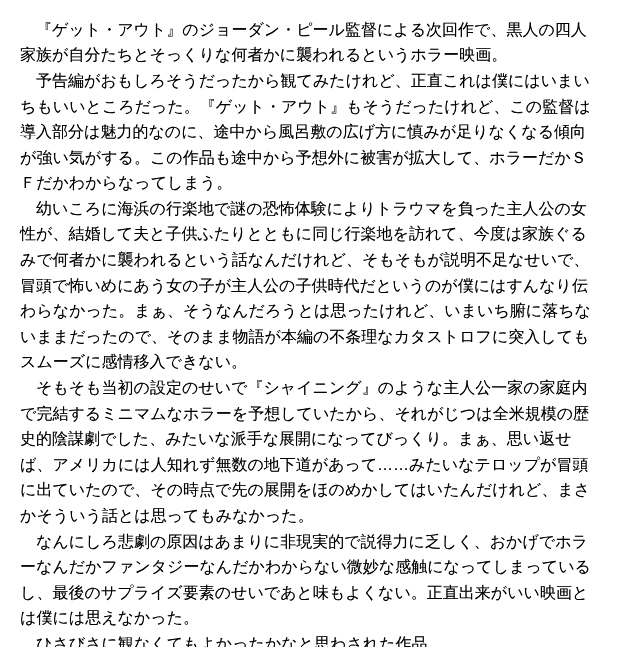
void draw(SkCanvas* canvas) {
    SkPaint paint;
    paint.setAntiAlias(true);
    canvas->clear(0xFFFFFFFF);
    SkFont font1(fontMgr->matchFamilyStyle("WenQuanYi Zen Hei", SkFontStyle(500, SkFontStyle::kNormal_Width, SkFontStyle::kUpright_Slant)), 16);
    font1.setSubpixel(true);
    paint.setColor(0xFF000000);
    canvas->drawString("『ゲット・アウト』のジョーダン・ピール監督による次回作で、黒人の四人", 36, 35, font1, paint);
    canvas->drawString("家族が自分たちとそっくりな何者かに襲われるというホラー映画。", 20, 60, font1, paint);
    canvas->drawString("予告編がおもしろそうだったから観てみたけれど、正直これは僕にはいまい", 36, 86, font1, paint);
    canvas->drawString("ちもいいところだった。『ゲット・アウト』もそうだったけれど、この監督は", 20, 112, font1, paint);
    canvas->drawString("導入部分は魅力的なのに、途中から風呂敷の広げ方に慎みが足りなくなる傾向", 20, 137, font1, paint);
    canvas->drawString("が強い気がする。この作品も途中から予想外に被害が拡大して、ホラーだかＳ", 20, 163, font1, paint);
    canvas->drawString("Ｆだかわからなってしまう。", 20, 188, font1, paint);
    canvas->drawString("幼いころに海浜の行楽地で謎の恐怖体験によりトラウマを負った主人公の女", 36, 214, font1, paint);
    canvas->drawString("性が、結婚して夫と子供ふたりとともに同じ行楽地を訪れて、今度は家族ぐる", 20, 239, font1, paint);
    canvas->drawString("みで何者かに襲われるという話なんだけれど、そもそもが説明不足なせいで、", 20, 265, font1, paint);
    canvas->drawString("冒頭で怖いめにあう女の子が主人公の子供時代だというのが僕にはすんなり伝", 20, 291, font1, paint);
    canvas->drawString("わらなかった。まぁ、そうなんだろうとは思ったけれど、いまいち腑に落ちな", 20, 316, font1, paint);
    canvas->drawString("いままだったので、そのまま物語が本編の不条理なカタストロフに突入しても", 20, 342, font1, paint);
    canvas->drawString("スムーズに感情移入できない。", 20, 367, font1, paint);
    canvas->drawString("そもそも当初の設定のせいで『シャイニング』のような主人公一家の家庭内", 36, 393, font1, paint);
    canvas->drawString("で完結するミニマムなホラーを予想していたから、それがじつは全米規模の歴", 20, 419, font1, paint);
    canvas->drawString("史的陰謀劇でした、みたいな派手な展開になってびっくり。まぁ、思い返せ", 20, 444, font1, paint);
    canvas->drawString("ば、アメリカには人知れず無数の地下道があって", 20, 470, font1, paint);
    SkFont font2(fontMgr->matchFamilyStyle("Liberation Sans", SkFontStyle::Normal()), 16);
    font2.setSubpixel(true);
    canvas->drawString("……", 377, 470, font2, paint);
    canvas->drawString("みたいなテロップが冒頭", 409, 470, font1, paint);
    canvas->drawString("に出ていたので、その時点で先の展開をほのめかしてはいたんだけれど、まさ", 20, 495, font1, paint);
    canvas->drawString("かそういう話とは思ってもみなかった。", 20, 521, font1, paint);
    canvas->drawString("なんにしろ悲劇の原因はあまりに非現実的で説得力に乏しく、おかげでホラ", 36, 547, font1, paint);
    canvas->drawString("ーなんだかファンタジーなんだかわからない微妙な感触になってしまっている", 20, 572, font1, paint);
    canvas->drawString("し、最後のサプライズ要素のせいであと味もよくない。正直出来がいい映画と", 20, 598, font1, paint);
    canvas->drawString("は僕には思えなかった。", 20, 623, font1, paint);
    canvas->drawString("ひさびさに観なくてもよかったかなと思わされた作品", 36, 649, font1, paint);
}
